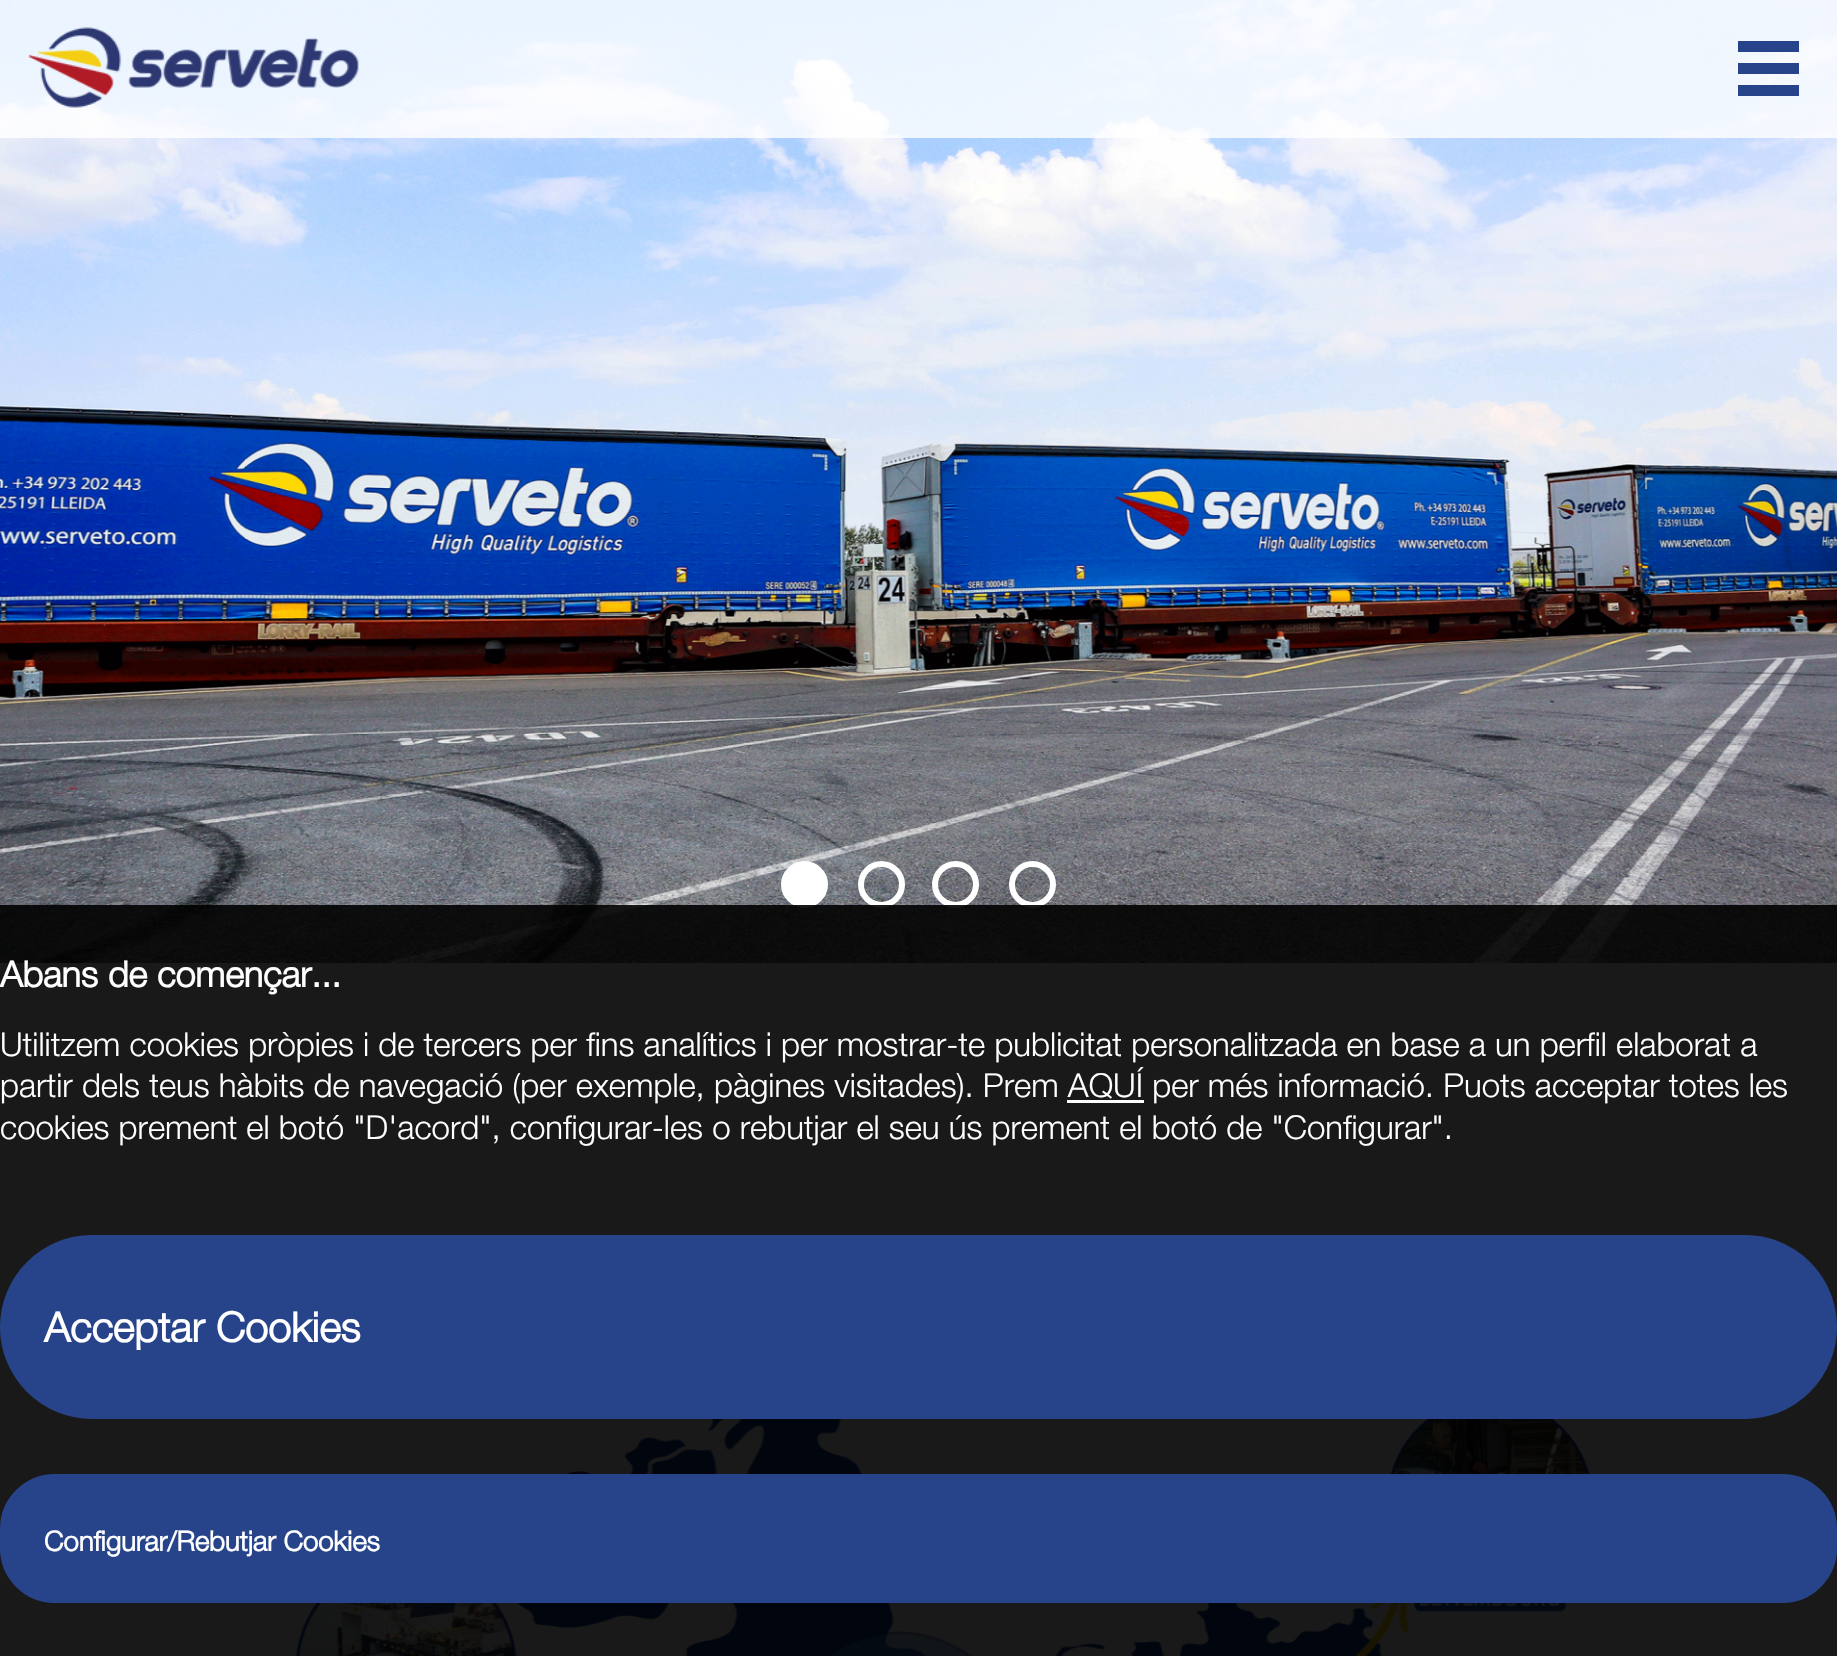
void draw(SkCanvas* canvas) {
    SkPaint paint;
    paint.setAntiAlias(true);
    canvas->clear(0xFFFFFFFF);
    canvas->drawImageRect(SkImages::DeferredFromEncodedData(SkData::MakeFromFileName("img1.png")), SkRect::MakeXYWH(0, 0, 1837, 963), SkSamplingOptions());
    paint.setColor(0xFFFFFFFF);
    canvas->drawCircle(804.5f, 884.5f, 20.5f, paint);
    paint.setStyle(SkPaint::kStroke_Style);
    paint.setStrokeWidth(6);
    canvas->drawCircle(804.5f, 884.5f, 20.5f, paint);
    canvas->drawCircle(881.5f, 884.5f, 20.5f, paint);
    canvas->drawCircle(955.5f, 884.5f, 20.5f, paint);
    canvas->drawCircle(1032.5f, 884.5f, 20.5f, paint);
    paint.setStyle(SkPaint::kFill_Style);
    paint.setColor(0xCCFFFFFF);
    canvas->drawRect(SkRect::MakeXYWH(0, 0, 1837, 138), paint);
    canvas->drawImageRect(SkImages::DeferredFromEncodedData(SkData::MakeFromFileName("img2.png")), SkRect::MakeXYWH(28, 27, 331, 81), SkSamplingOptions());
    paint.setColor(0xFF27448B);
    canvas->drawRect(SkRect::MakeXYWH(1738, 63, 61, 11), paint);
    canvas->drawRect(SkRect::MakeXYWH(1738, 41, 61, 11), paint);
    canvas->drawRect(SkRect::MakeXYWH(1738, 85, 61, 11), paint);
    canvas->drawImageRect(SkImages::DeferredFromEncodedData(SkData::MakeFromFileName("img3.png")), SkRect::MakeXYWH(295, 1419, 1295, 237), SkSamplingOptions());
    paint.setColor(0xE6000000);
    canvas->drawRect(SkRect::MakeXYWH(0, 905, 1837, 751), paint);
    SkFont font1(fontMgr->matchFamilyStyle("Helvetica Neue", SkFontStyle::Bold()), 35.75f);
    font1.setSubpixel(true);
    paint.setColor(0xFFFFFFFF);
    canvas->drawString("Abans de començar...", 0, 987, font1, paint);
    SkFont font2(fontMgr->matchFamilyStyle("Helvetica Neue", SkFontStyle(300, SkFontStyle::kNormal_Width, SkFontStyle::kUpright_Slant)), 33);
    font2.setSubpixel(true);
    canvas->drawString("Utilitzem cookies pròpies i de tercers per fins analítics i per mostrar-te publicitat personalitzada en base a un perfil elaborat a", 0, 1056, font2, paint);
    canvas->drawString("partir dels teus hàbits de navegació (per exemple, pàgines visitades). Prem AQUÍ per més informació. Puots acceptar totes les", 0, 1097, font2, paint);
    canvas->drawRect(SkRect::MakeXYWH(1067, 1100, 77, 3), paint);
    canvas->drawString("cookies prement el botó \"D'acord\", configurar-les o rebutjar el seu ús prement el botó de \"Configurar\".", 0, 1139, font2, paint);
    paint.setColor(0xFF27448B);
    canvas->drawRoundRect(SkRect::MakeXYWH(1.5f, 1236.5f, 1834, 181), 90.5f, 90.5f, paint);
    paint.setStyle(SkPaint::kStroke_Style);
    paint.setStrokeWidth(3);
    canvas->drawRoundRect(SkRect::MakeXYWH(1.5f, 1236.5f, 1834, 181), 90.5f, 90.5f, paint);
    SkFont font3(fontMgr->matchFamilyStyle("Helvetica Neue", SkFontStyle::Bold()), 41.25f);
    font3.setSubpixel(true);
    paint.setStyle(SkPaint::kFill_Style);
    paint.setColor(0xFFFFFFFF);
    canvas->drawString("Acceptar Cookies", 44, 1342, font3, paint);
    paint.setColor(0xFF27448B);
    canvas->drawRoundRect(SkRect::MakeXYWH(1.5f, 1475.5f, 1834, 126), 53.5f, 53.5f, paint);
    paint.setStyle(SkPaint::kStroke_Style);
    canvas->drawRoundRect(SkRect::MakeXYWH(1.5f, 1475.5f, 1834, 126), 53.5f, 53.5f, paint);
    SkFont font4(fontMgr->matchFamilyStyle("Helvetica Neue", SkFontStyle::Bold()), 27.5f);
    font4.setSubpixel(true);
    paint.setStyle(SkPaint::kFill_Style);
    paint.setColor(0xFFFFFFFF);
    canvas->drawString("Configurar/Rebutjar Cookies", 44, 1551, font4, paint);
}
